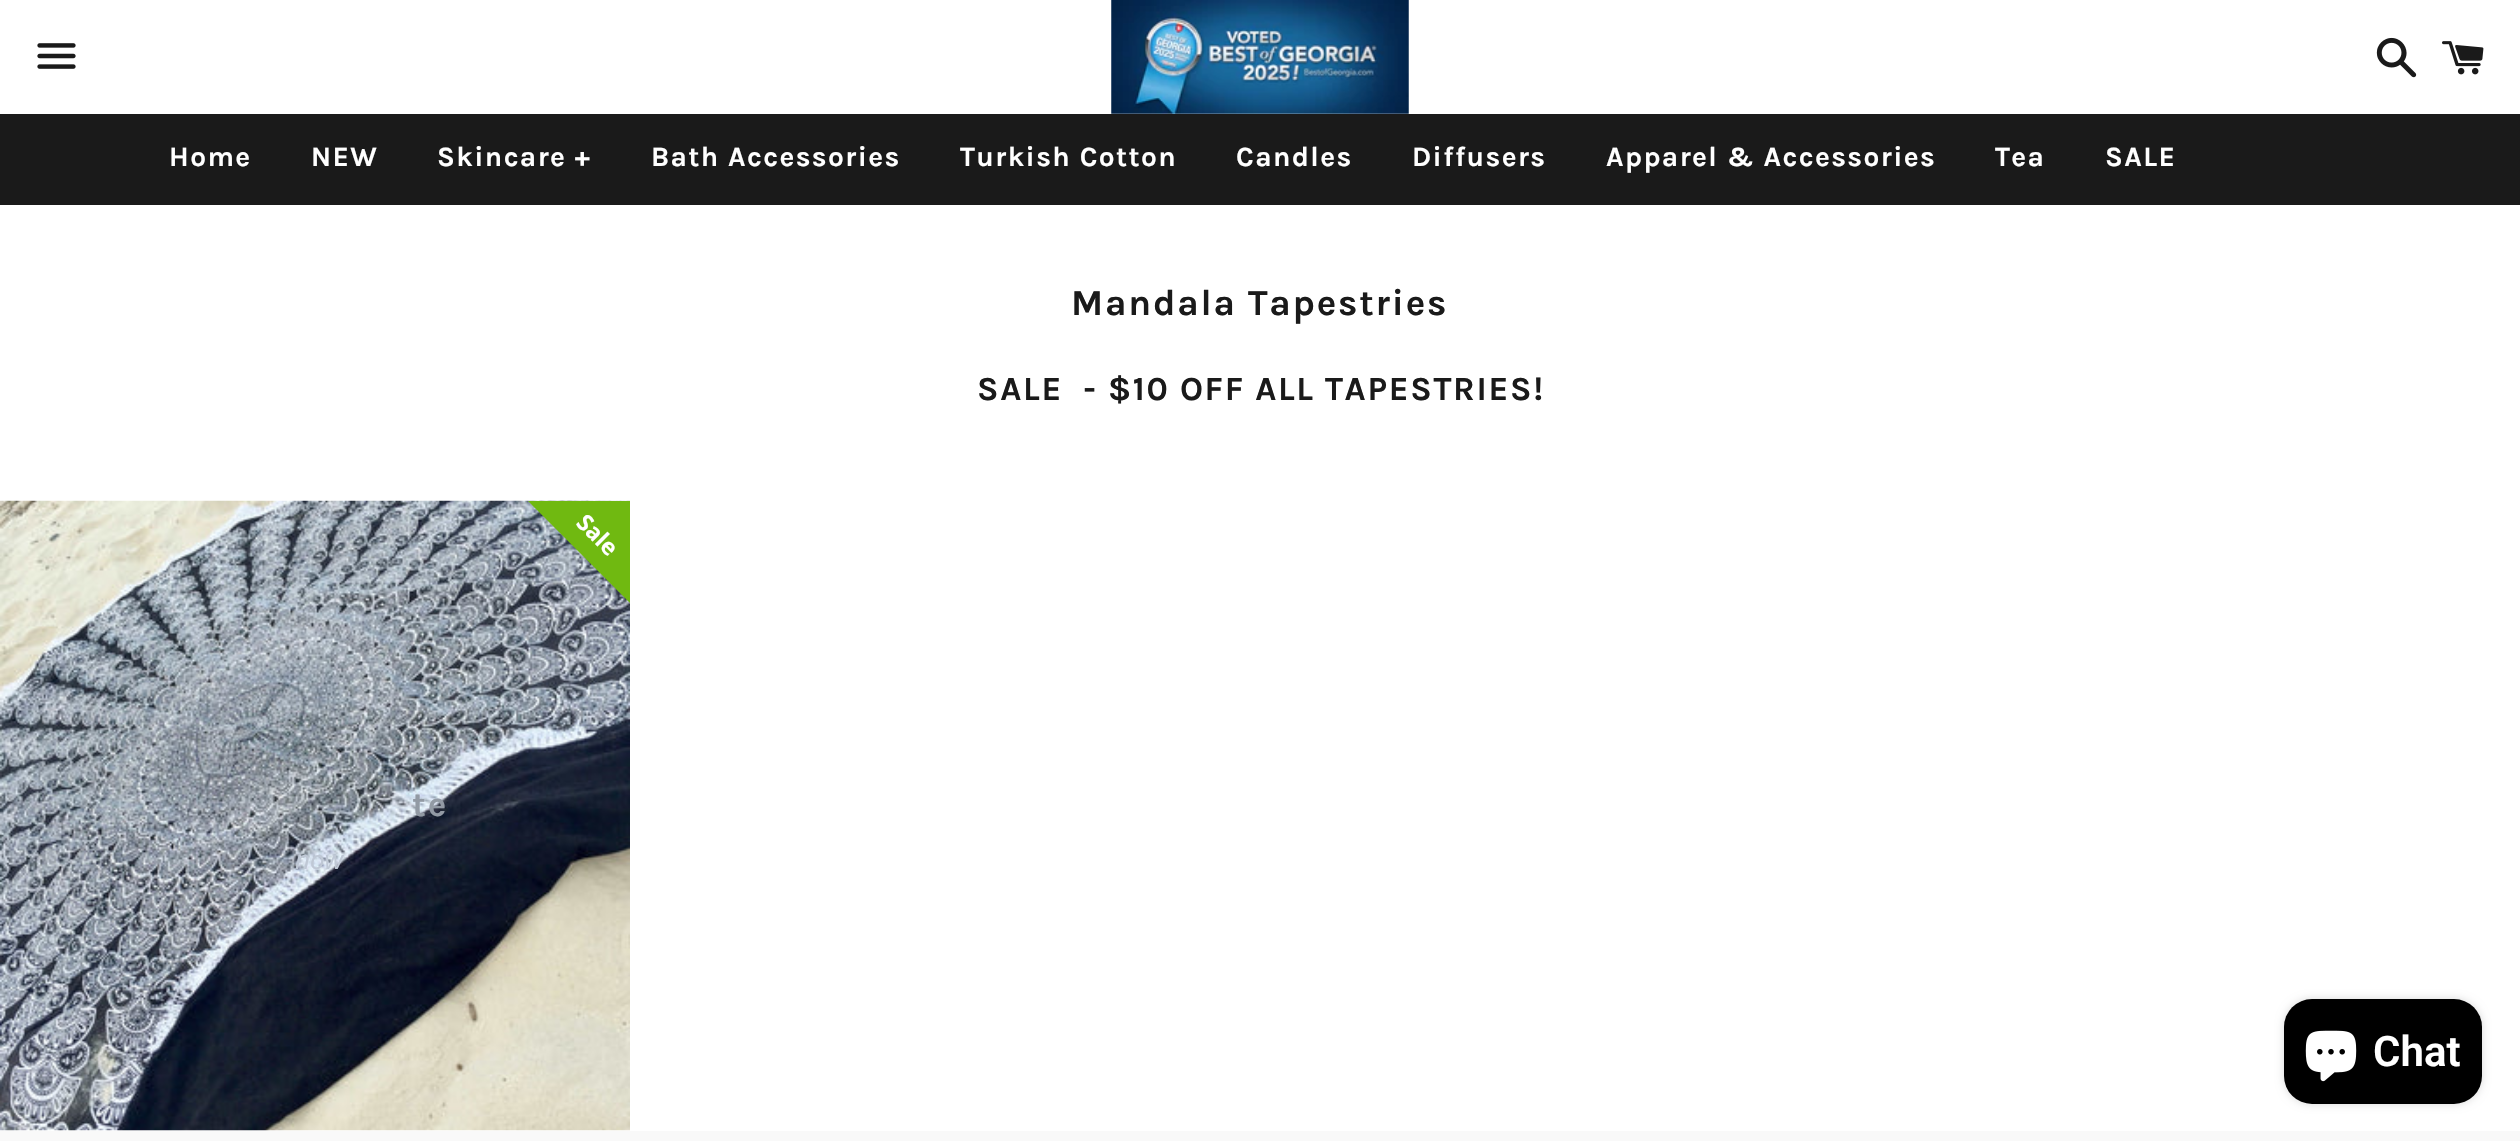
void draw(SkCanvas* canvas) {
    SkPaint paint;
    paint.setAntiAlias(true);
    auto spacedText = [&](const char* s, float x, float y, const SkFont& font, const SkPaint& ink, float letter, float word) {
        std::vector<SkGlyphID> glyphs(font.countText(s, strlen(s), SkTextEncoding::kUTF8));
        std::vector<float> xs(glyphs.size());
        font.textToGlyphs(s, strlen(s), SkTextEncoding::kUTF8, glyphs);
        font.getXPos(glyphs, xs, x);
        float extra = 0;
        for (size_t i = 0; i < glyphs.size(); i++) {
            xs[i] += extra;
            extra += letter + word * (glyphs[i] == font.unicharToGlyph(' '));
        }
        canvas->drawTextBlob(SkTextBlob::MakeFromPosHGlyphs(glyphs, xs, y, font), 0, 0, ink);
    };
    canvas->clear(0xFFFFFFFF);
    canvas->drawImageRect(SkImages::DeferredFromEncodedData(SkData::MakeFromFileName("img1.png")), SkRect::MakeXYWH(37, 43, 39, 26), SkSamplingOptions());
    canvas->drawImageRect(SkImages::DeferredFromEncodedData(SkData::MakeFromFileName("img2.png")), SkRect::MakeXYWH(1111, 0, 298, 114), SkSamplingOptions());
    canvas->drawImageRect(SkImages::DeferredFromEncodedData(SkData::MakeFromFileName("img3.png")), SkRect::MakeXYWH(2376, 37, 41, 41), SkSamplingOptions());
    canvas->drawImageRect(SkImages::DeferredFromEncodedData(SkData::MakeFromFileName("img4.png")), SkRect::MakeXYWH(2442, 41, 42, 34), SkSamplingOptions());
    paint.setColor(0xFF1A1A1A);
    canvas->drawRect(SkRect::MakeXYWH(0, 114, 2520, 91), paint);
    SkFont font1(fontMgr->matchFamilyStyle("Karla", SkFontStyle::Bold()), 28);
    font1.setSubpixel(true);
    paint.setColor(0xFFFFFFFF);
    spacedText("Home", 169, 166, font1, paint, 1.4f, 0);
    spacedText("NEW", 311, 166, font1, paint, 1.4f, 0);
    spacedText("Skincare +", 437, 166, font1, paint, 1.4f, 0);
    spacedText("Bath Accessories", 651, 166, font1, paint, 1.4f, 0);
    spacedText("Turkish Cotton", 960, 166, font1, paint, 1.4f, 0);
    spacedText("Candles", 1236, 166, font1, paint, 1.4f, 0);
    spacedText("Diffusers", 1412, 166, font1, paint, 1.4f, 0);
    spacedText("Apparel & Accessories", 1606, 166, font1, paint, 1.4f, 0);
    spacedText("Tea", 1995, 166, font1, paint, 1.4f, 0);
    spacedText("SALE", 2105, 166, font1, paint, 1.4f, 0);
    SkFont font2(fontMgr->matchFamilyStyle("Karla", SkFontStyle::Bold()), 36.75f);
    font2.setSubpixel(true);
    paint.setColor(0xFF1A1A1A);
    spacedText("Mandala Tapestries", 1071, 315, font2, paint, 1.8f, 0);
    SkFont font3(fontMgr->matchFamilyStyle("Karla", SkFontStyle::Bold()), 33.75f);
    font3.setSubpixel(true);
    spacedText("SALE  - $10 OFF ALL TAPESTRIES!", 977, 400, font3, paint, 1.7f, 0);
    canvas->drawImageRect(SkImages::DeferredFromEncodedData(SkData::MakeFromFileName("img5.png")), SkRect::MakeXYWH(0, 500, 630, 631), SkSamplingOptions());
    canvas->save();
    canvas->clipRect(SkRect::MakeXYWH(0, 501, 630, 630));
    paint.setColor(0xFF70B911);
    canvas->drawPath(SkPathBuilder().moveTo(536, 348).lineTo(783, 596).lineTo(703, 676).lineTo(456, 429).close().detach(), paint);
    canvas->restore();
    SkFont font4(fontMgr->matchFamilyStyle("Open Sans", SkFontStyle::Bold()), 23);
    font4.setSubpixel(true);
    paint.setColor(0xFFFFFFFF);
    canvas->save();
    canvas->rotate(45, 575, 524);
    canvas->drawString("Sale", 575, 524, font4, paint);
    canvas->restore();
    SkFont font5(fontMgr->matchFamilyStyle("Karla", SkFontStyle::Bold()), 35);
    font5.setSubpixel(true);
    paint.setColor(0xFF929AA4);
    spacedText("te", 412, 816, font5, paint, 2, 0);
    SkFont font6(fontMgr->matchFamilyStyle("Open Sans", SkFontStyle::Italic()), 26);
    font6.setSubpixel(true);
    paint.setColor(0xFFBFC8D5);
    canvas->drawString("now", 295, 869, font6, paint);
    paint.setColor(0xFFF9F9F9);
    canvas->drawRect(SkRect::MakeXYWH(0, 1131, 2520, 10), paint);
    paint.setColor(0x26000000);
    paint.setMaskFilter(SkMaskFilter::MakeBlur(kNormal_SkBlurStyle, 4.5f));
    canvas->drawRoundRect(SkRect::MakeXYWH(2284, 999, 198, 105), 28, 28, paint);
    paint.setMaskFilter(nullptr);
    paint.setColor(0xFF000000);
    canvas->drawRoundRect(SkRect::MakeXYWH(2284, 999, 198, 105), 28, 28, paint);
    canvas->drawImageRect(SkImages::DeferredFromEncodedData(SkData::MakeFromFileName("img6.png")), SkRect::MakeXYWH(2305, 1030, 52, 52), SkSamplingOptions());
    SkFont font7(fontMgr->matchFamilyStyle("Roboto", SkFontStyle(600, SkFontStyle::kNormal_Width, SkFontStyle::kUpright_Slant)), 42);
    font7.setSubpixel(true);
    paint.setColor(0xFFFFFFFF);
    canvas->drawString("Chat", 2373, 1066, font7, paint);
}
